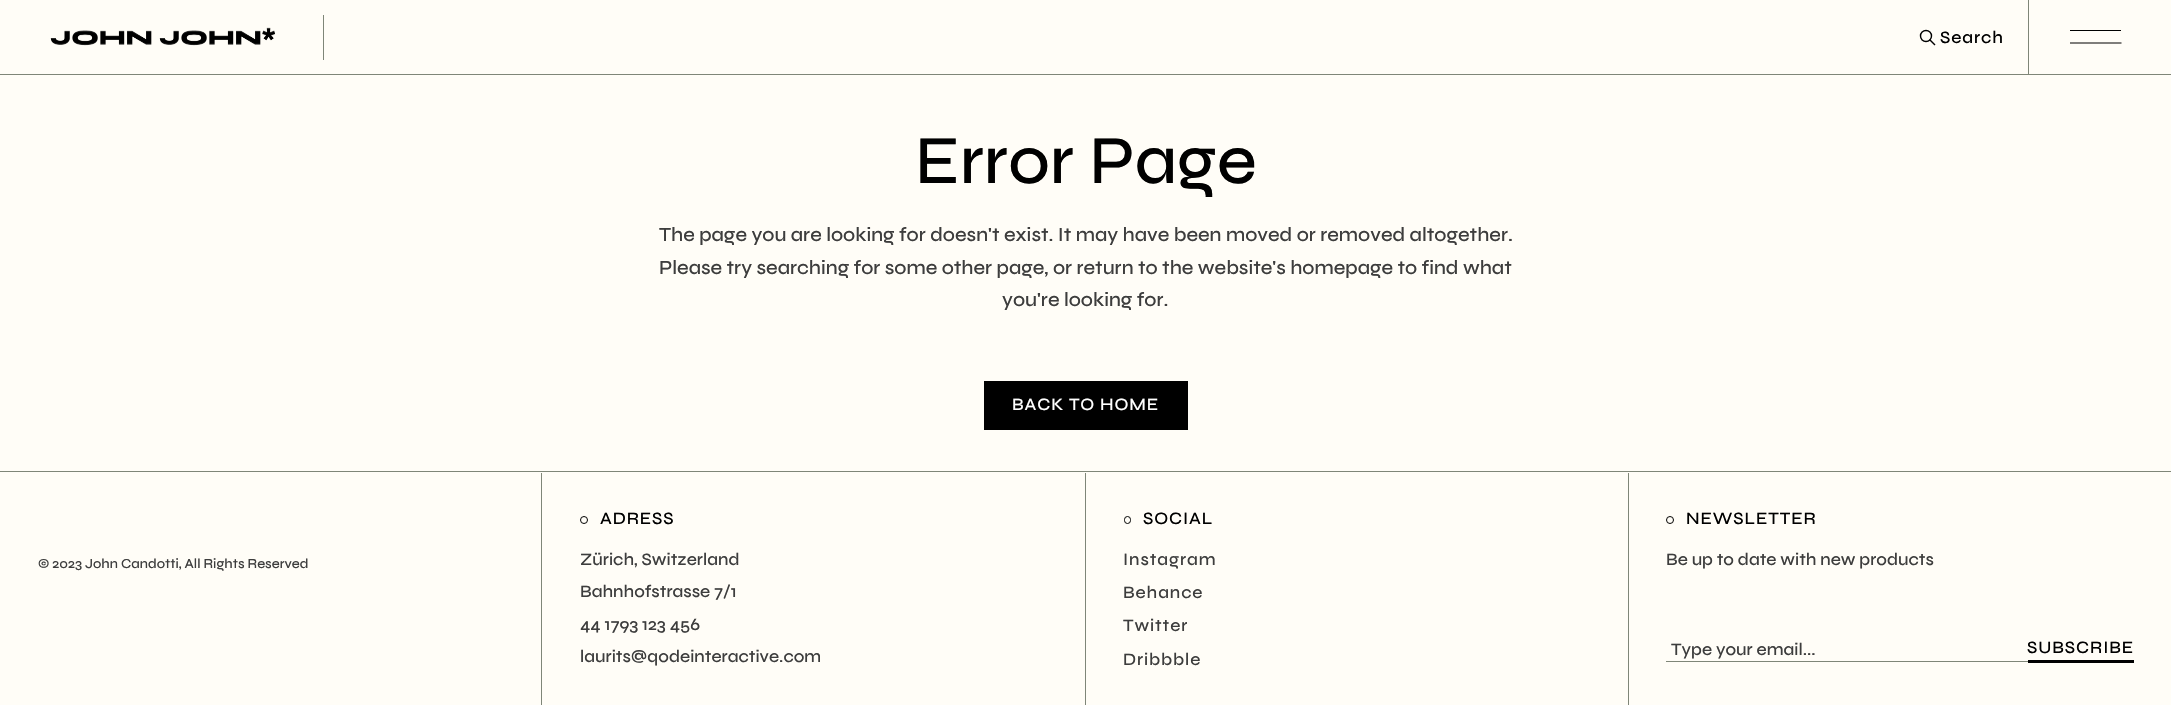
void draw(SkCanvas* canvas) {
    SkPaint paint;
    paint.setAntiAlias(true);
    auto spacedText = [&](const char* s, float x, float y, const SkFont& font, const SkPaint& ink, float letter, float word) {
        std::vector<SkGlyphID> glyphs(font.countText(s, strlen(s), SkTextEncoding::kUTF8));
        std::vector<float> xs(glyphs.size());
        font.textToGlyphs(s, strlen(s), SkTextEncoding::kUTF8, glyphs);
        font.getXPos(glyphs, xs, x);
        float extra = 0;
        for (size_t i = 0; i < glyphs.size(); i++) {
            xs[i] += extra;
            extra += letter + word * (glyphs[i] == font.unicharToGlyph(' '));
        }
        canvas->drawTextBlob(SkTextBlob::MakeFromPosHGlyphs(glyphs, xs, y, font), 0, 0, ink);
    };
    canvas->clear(0xFFFFFDF7);
    paint.setColor(0xFF7F8678);
    canvas->drawRect(SkRect::MakeXYWH(0, 74, 2171, 1), paint);
    canvas->drawRect(SkRect::MakeXYWH(323, 15, 1, 45), paint);
    canvas->drawImageRect(SkImages::DeferredFromEncodedData(SkData::MakeFromFileName("img1.png")), SkRect::MakeXYWH(50, 27, 225, 19), SkSamplingOptions());
    paint.setStyle(SkPaint::kStroke_Style);
    paint.setStrokeWidth(1.4f);
    paint.setColor(0xFF000000);
    canvas->drawCircle(1926, 36, 5.5f, paint);
    canvas->drawPath(SkPathBuilder().moveTo(1929.5f, 39.5f).lineTo(1935, 45).detach(), paint);
    SkFont font1(fontMgr->matchFamilyStyle("Syne", SkFontStyle(500, SkFontStyle::kNormal_Width, SkFontStyle::kUpright_Slant)), 17.5f);
    font1.setSubpixel(true);
    paint.setStyle(SkPaint::kFill_Style);
    spacedText("Search", 1940, 43, font1, paint, 0.9f, 0);
    paint.setColor(0xFF7F8678);
    canvas->drawRect(SkRect::MakeXYWH(2028, 0, 1, 74), paint);
    paint.setColor(0xFF000000);
    canvas->drawRect(SkRect::MakeXYWH(2070, 30, 51, 1), paint);
    paint.setStyle(SkPaint::kStroke_Style);
    paint.setStrokeWidth(1.2f);
    canvas->drawPath(SkPathBuilder().moveTo(2070, 43).lineTo(2121.5f, 43).detach(), paint);
    SkFont font2(fontMgr->matchFamilyStyle("Syne", SkFontStyle(500, SkFontStyle::kNormal_Width, SkFontStyle::kUpright_Slant)), 68.75f);
    font2.setSubpixel(true);
    paint.setStyle(SkPaint::kFill_Style);
    canvas->drawString("Error Page", 915, 183, font2, paint);
    SkFont font3(fontMgr->matchFamilyStyle("Syne", SkFontStyle(500, SkFontStyle::kNormal_Width, SkFontStyle::kUpright_Slant)), 20);
    font3.setSubpixel(true);
    paint.setColor(0xFF3D3D3D);
    canvas->drawString("The page you are looking for doesn't exist. It may have been moved or removed altogether.", 659, 241, font3, paint);
    canvas->drawString("Please try searching for some other page, or return to the website's homepage to find what", 659, 274, font3, paint);
    canvas->drawString("you're looking for.", 1002, 306, font3, paint);
    paint.setColor(0xFF000000);
    canvas->drawRect(SkRect::MakeXYWH(984, 381, 204, 49), paint);
    paint.setColor(0xFFFFFFFF);
    spacedText("BACK TO HOME", 1012, 410, font1, paint, 0.9f, 0);
    paint.setColor(0xFF7F8678);
    canvas->drawRect(SkRect::MakeXYWH(0, 471, 2171, 1), paint);
    canvas->drawRect(SkRect::MakeXYWH(541, 473, 1, 232), paint);
    SkFont font4(fontMgr->matchFamilyStyle("Syne", SkFontStyle(500, SkFontStyle::kNormal_Width, SkFontStyle::kUpright_Slant)), 13.75f);
    font4.setSubpixel(true);
    paint.setColor(0xFF3D3D3D);
    canvas->drawString("© 2023 John Candotti, All Rights Reserved", 38, 568, font4, paint);
    paint.setColor(0xFF7F8678);
    canvas->drawRect(SkRect::MakeXYWH(1085, 473, 1, 232), paint);
    paint.setStyle(SkPaint::kStroke_Style);
    paint.setStrokeWidth(1);
    paint.setColor(0xFF000000);
    canvas->drawCircle(584, 520, 3.5f, paint);
    paint.setStyle(SkPaint::kFill_Style);
    spacedText("ADRESS", 600, 524, font1, paint, 0.9f, 0);
    paint.setColor(0xFF3D3D3D);
    canvas->drawString("Zürich, Switzerland", 580, 565, font1, paint);
    canvas->drawString("Bahnhofstrasse 7/1", 580, 597, font1, paint);
    canvas->drawString("44 1793 123 456", 580, 630, font1, paint);
    canvas->drawString("laurits@qodeinteractive.com", 580, 662, font1, paint);
    paint.setColor(0xFF7F8678);
    canvas->drawRect(SkRect::MakeXYWH(1628, 473, 1, 232), paint);
    paint.setStyle(SkPaint::kStroke_Style);
    paint.setColor(0xFF000000);
    canvas->drawRoundRect(SkRect::MakeXYWH(1124.5f, 516.5f, 6, 7), 3, 3, paint);
    paint.setStyle(SkPaint::kFill_Style);
    spacedText("SOCIAL", 1143, 524, font1, paint, 0.9f, 0);
    paint.setColor(0xFF3D3D3D);
    spacedText("Instagram", 1123, 565, font1, paint, 0.9f, 0);
    spacedText("Behance", 1123, 598, font1, paint, 0.9f, 0);
    spacedText("Twitter", 1123, 631, font1, paint, 0.9f, 0);
    spacedText("Dribbble", 1123, 665, font1, paint, 0.9f, 0);
    paint.setStyle(SkPaint::kStroke_Style);
    paint.setColor(0xFF000000);
    canvas->drawCircle(1670, 520, 3.5f, paint);
    paint.setStyle(SkPaint::kFill_Style);
    spacedText("NEWSLETTER", 1686, 524, font1, paint, 0.9f, 0);
    paint.setColor(0xFF3D3D3D);
    canvas->drawString("Be up to date with new products", 1666, 565, font1, paint);
    paint.setColor(0xFF7F8678);
    canvas->drawRect(SkRect::MakeXYWH(1666, 661, 362, 1), paint);
    paint.setColor(0xFF3D3D3D);
    canvas->drawString("Type your email...", 1671, 655, font1, paint);
    paint.setColor(0xFF000000);
    spacedText("SUBSCRIBE", 2027, 653, font1, paint, 0.9f, 0);
    canvas->drawRect(SkRect::MakeXYWH(2028, 660, 106, 3), paint);
}
